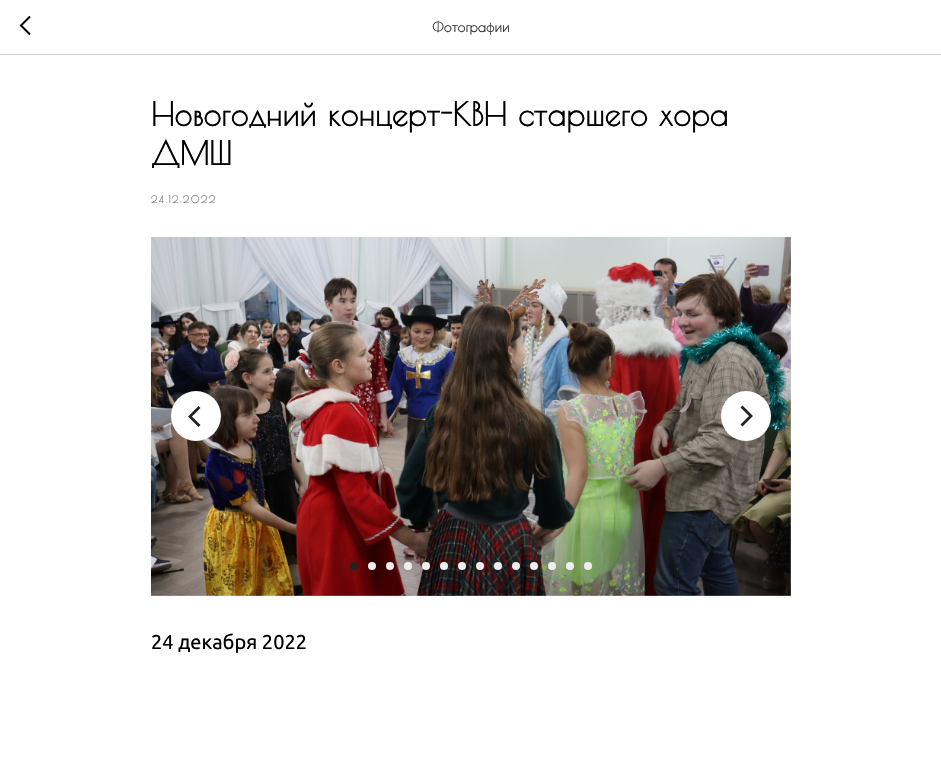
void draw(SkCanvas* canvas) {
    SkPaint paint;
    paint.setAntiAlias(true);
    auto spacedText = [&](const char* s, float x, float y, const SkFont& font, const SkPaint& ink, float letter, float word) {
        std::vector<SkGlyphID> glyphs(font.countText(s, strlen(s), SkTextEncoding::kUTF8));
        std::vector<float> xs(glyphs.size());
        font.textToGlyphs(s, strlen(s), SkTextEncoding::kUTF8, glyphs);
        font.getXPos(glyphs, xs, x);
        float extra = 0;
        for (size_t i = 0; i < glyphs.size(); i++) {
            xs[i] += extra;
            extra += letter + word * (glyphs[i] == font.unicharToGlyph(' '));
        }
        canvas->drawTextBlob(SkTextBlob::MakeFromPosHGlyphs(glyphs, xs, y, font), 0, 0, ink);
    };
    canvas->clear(0xFFFFFFFF);
    paint.setColor(0xFFCCCCCC);
    canvas->drawRect(SkRect::MakeXYWH(0, 54, 941, 1), paint);
    paint.setStyle(SkPaint::kStroke_Style);
    paint.setStrokeWidth(2);
    paint.setColor(0xFF000000);
    canvas->drawPath(SkPathBuilder().moveTo(30, 34.5f).lineTo(21, 25.5f).lineTo(30, 16.5f).detach(), paint);
    SkFont font1(fontMgr->matchFamilyStyle("Poiret One", SkFontStyle::Bold()), 14);
    font1.setSubpixel(true);
    paint.setStyle(SkPaint::kFill_Style);
    paint.setColor(0xFF333333);
    canvas->drawString("Фотографии", 432, 32, font1, paint);
    SkFont font2(fontMgr->matchFamilyStyle("Poiret One", SkFontStyle::Bold()), 32);
    font2.setSubpixel(true);
    paint.setColor(0xFF000000);
    canvas->drawString("Новогодний концерт-КВН старшего хора", 151, 126, font2, paint);
    canvas->drawString("ДМШ", 151, 165, font2, paint);
    SkFont font3(fontMgr->matchFamilyStyle("Poiret One", SkFontStyle::Bold()), 10);
    font3.setSubpixel(true);
    paint.setColor(0xFF808080);
    spacedText("24.12.2022", 151, 203, font3, paint, 1.5f, 0);
    canvas->drawImageRect(SkImages::DeferredFromEncodedData(SkData::MakeFromFileName("img1.png")), SkRect::MakeXYWH(151, 237, 640, 359), SkSamplingOptions());
    paint.setColor(0xFFFFFFFF);
    canvas->drawCircle(196, 416, 25, paint);
    paint.setStyle(SkPaint::kStroke_Style);
    paint.setStrokeWidth(2.8f);
    paint.setColor(0xFF222222);
    canvas->drawPath(SkPathBuilder().moveTo(199.5f, 426).lineTo(190, 416.5f).lineTo(199.5f, 407).detach(), paint);
    paint.setStyle(SkPaint::kFill_Style);
    paint.setColor(0xFFFFFFFF);
    canvas->drawCircle(746, 416, 25, paint);
    paint.setStyle(SkPaint::kStroke_Style);
    paint.setColor(0xFF222222);
    canvas->drawPath(SkPathBuilder().moveTo(741.5f, 406.5f).lineTo(751, 416).lineTo(741.5f, 425.5f).detach(), paint);
    paint.setStyle(SkPaint::kFill_Style);
    canvas->drawCircle(354, 566, 4, paint);
    paint.setColor(0xFFEEEEEE);
    canvas->drawCircle(372, 566, 4, paint);
    canvas->drawCircle(390, 566, 4, paint);
    canvas->drawCircle(408, 566, 4, paint);
    canvas->drawCircle(426, 566, 4, paint);
    canvas->drawCircle(444, 566, 4, paint);
    canvas->drawCircle(462, 566, 4, paint);
    canvas->drawCircle(480, 566, 4, paint);
    canvas->drawCircle(498, 566, 4, paint);
    canvas->drawCircle(516, 566, 4, paint);
    canvas->drawCircle(534, 566, 4, paint);
    canvas->drawCircle(552, 566, 4, paint);
    canvas->drawCircle(570, 566, 4, paint);
    canvas->drawCircle(588, 566, 4, paint);
    SkFont font4(fontMgr->matchFamilyStyle("Ubuntu", SkFontStyle::Normal()), 20);
    font4.setSubpixel(true);
    paint.setColor(0xFF000000);
    canvas->drawString("24 декабря 2022", 151, 649, font4, paint);
}
